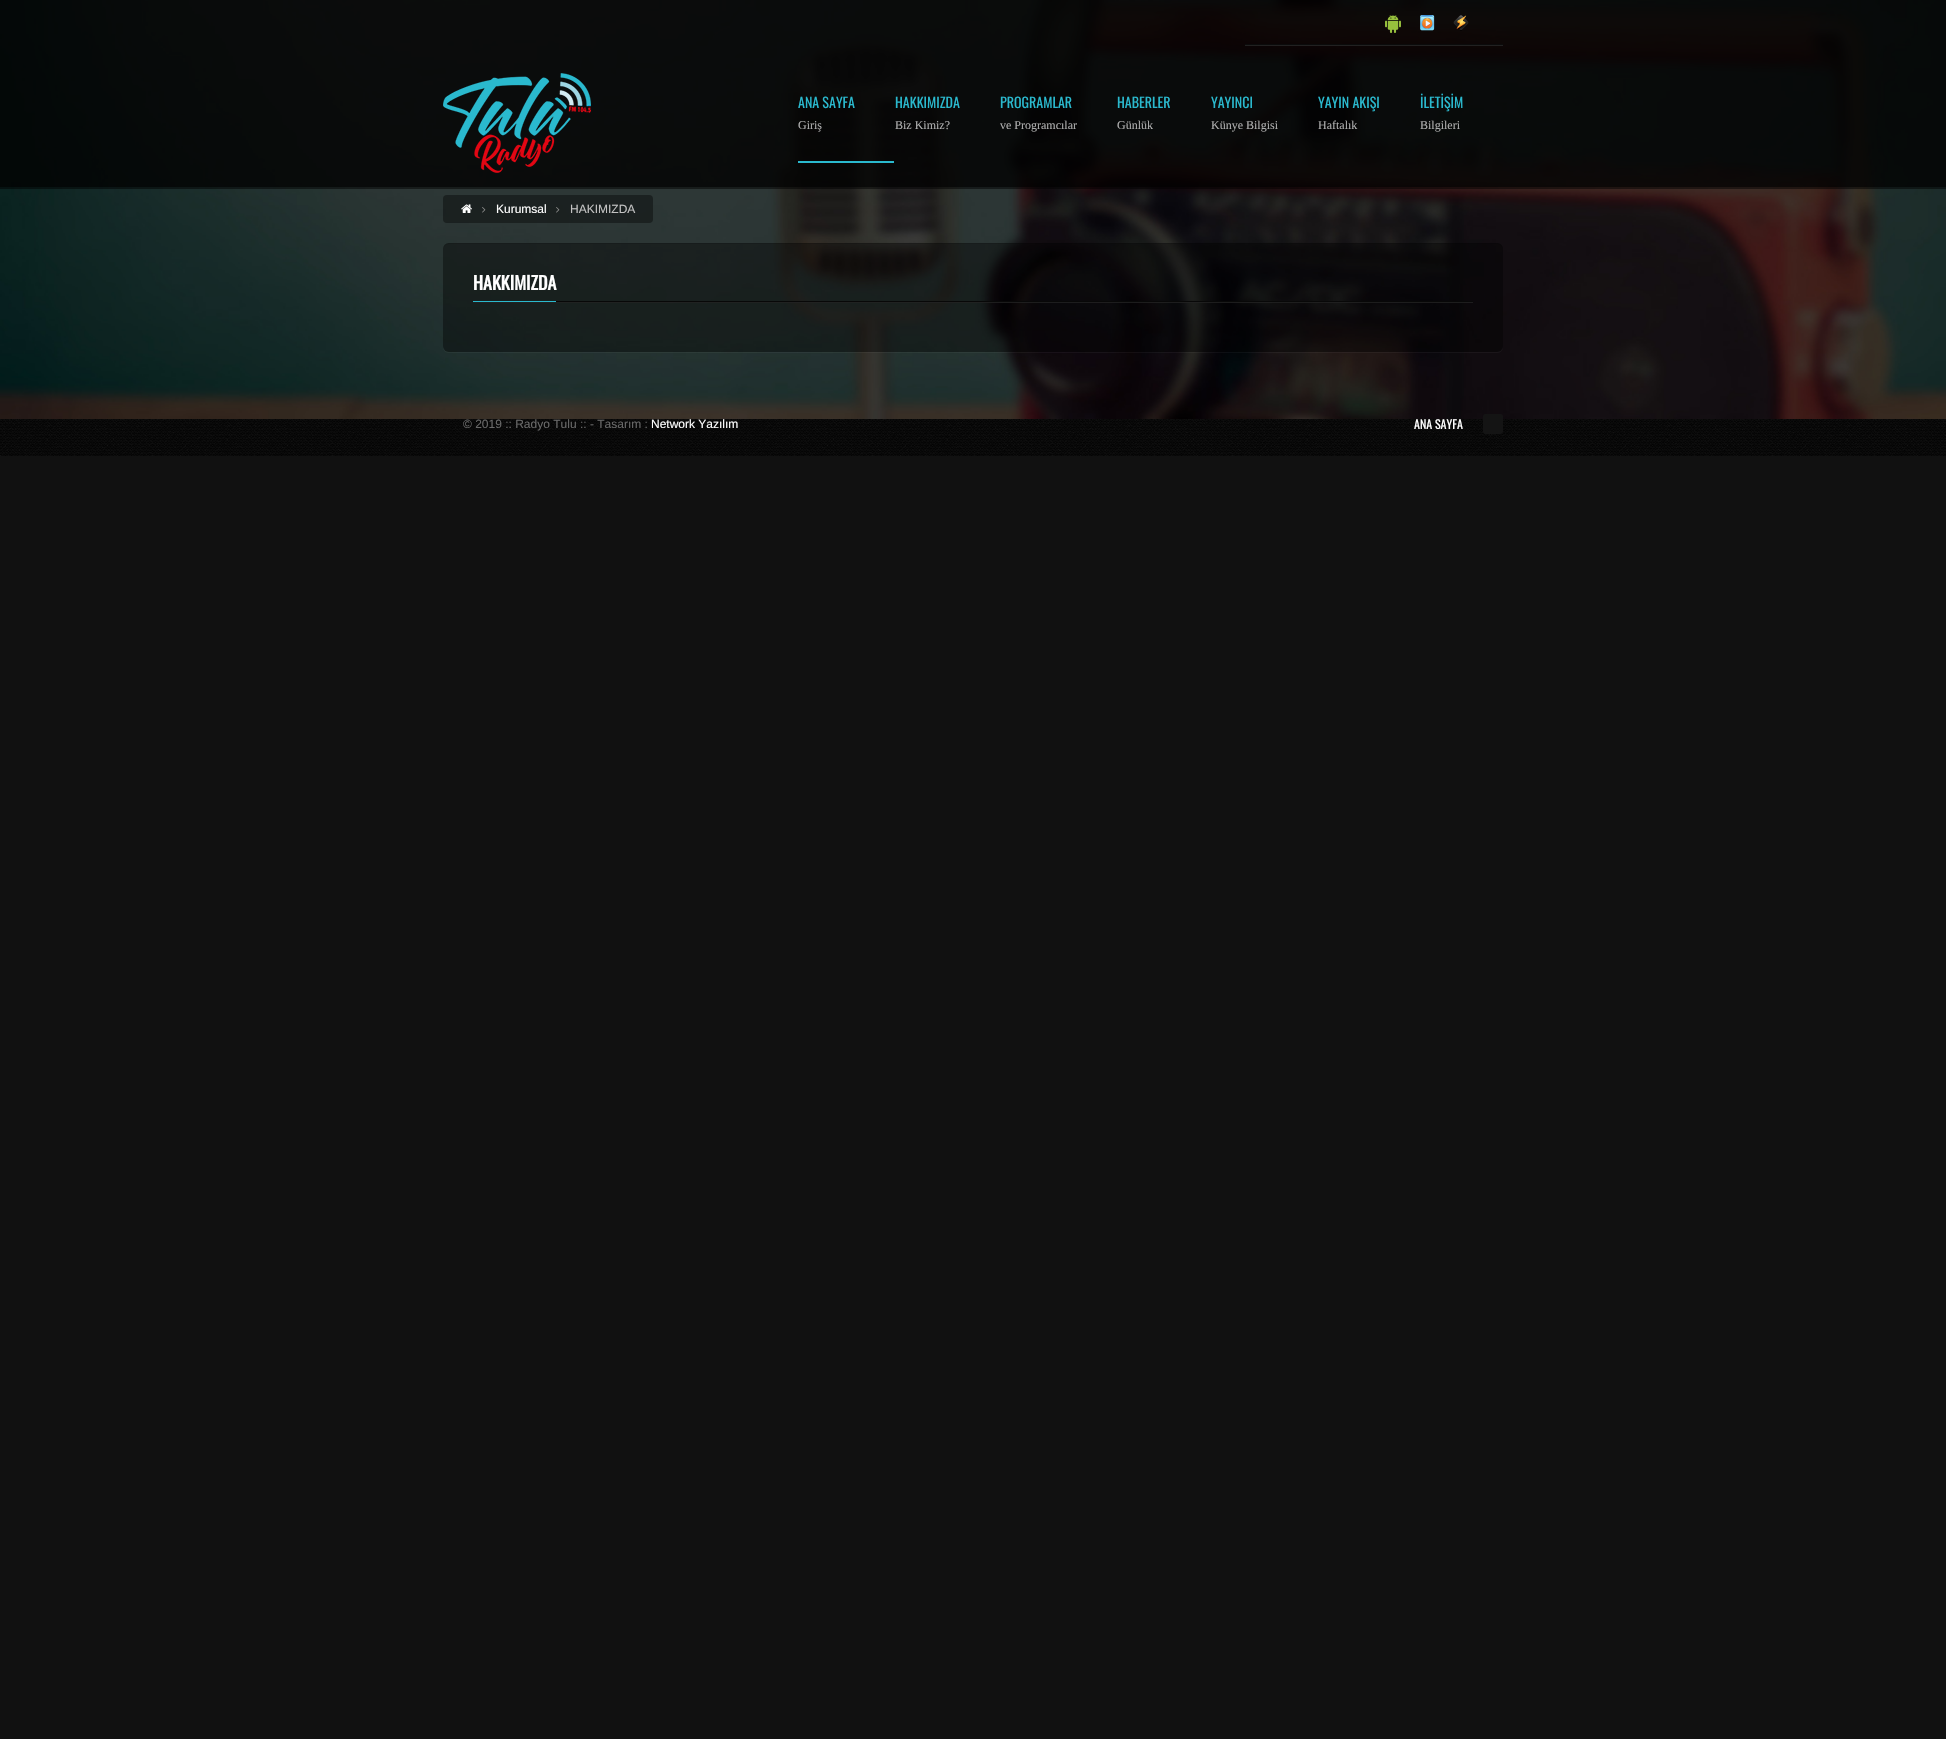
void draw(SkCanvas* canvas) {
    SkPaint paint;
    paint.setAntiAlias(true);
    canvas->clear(0xFF111111);
    canvas->drawImageRect(SkImages::DeferredFromEncodedData(SkData::MakeFromFileName("img1.png")), SkRect::MakeXYWH(0, 419, 1946, 37), SkSamplingOptions());
    canvas->drawImageRect(SkImages::DeferredFromEncodedData(SkData::MakeFromFileName("img2.png")), SkRect::MakeXYWH(0, 0, 1946, 419), SkSamplingOptions());
    paint.setColor(0x80000000);
    canvas->drawRect(SkRect::MakeXYWH(0, 187, 1946, 2), paint);
    paint.setColor(0xCC000000);
    canvas->drawRect(SkRect::MakeXYWH(0, 0, 1946, 187), paint);
    paint.setColor(0xFF222121);
    canvas->drawRect(SkRect::MakeXYWH(1245, 45, 258, 1), paint);
    paint.setColor(0xFF0B0B0B);
    canvas->drawRect(SkRect::MakeXYWH(1245, 44, 258, 1), paint);
    canvas->drawImageRect(SkImages::DeferredFromEncodedData(SkData::MakeFromFileName("img3.png")), SkRect::MakeXYWH(1385, 15, 16, 18), SkSamplingOptions());
    canvas->drawImageRect(SkImages::DeferredFromEncodedData(SkData::MakeFromFileName("img4.png")), SkRect::MakeXYWH(1420, 15, 15, 16), SkSamplingOptions());
    canvas->drawImageRect(SkImages::DeferredFromEncodedData(SkData::MakeFromFileName("img5.png")), SkRect::MakeXYWH(1453, 15, 16, 16), SkSamplingOptions());
    canvas->drawImageRect(SkImages::DeferredFromEncodedData(SkData::MakeFromFileName("img6.png")), SkRect::MakeXYWH(443, 73, 148, 100), SkSamplingOptions());
    SkFont font1(fontMgr->matchFamilyStyle("Oswald", SkFontStyle::Normal()), 14);
    font1.setSubpixel(true);
    paint.setColor(0xFF2AB9CE);
    canvas->drawString("ANA SAYFA", 798, 108, font1, paint);
    SkFont font2(fontMgr->matchFamilyStyle("Liberation Serif", SkFontStyle::Normal()), 12);
    font2.setSubpixel(true);
    paint.setColor(0xFFAFAFAF);
    canvas->drawString("Giriş", 798, 129, font2, paint);
    paint.setColor(0xFF2AB9CE);
    canvas->drawString("HAKKIMIZDA", 895, 108, font1, paint);
    paint.setColor(0xFFAFAFAF);
    canvas->drawString("Biz Kimiz?", 895, 129, font2, paint);
    paint.setColor(0xFF2AB9CE);
    canvas->drawString("PROGRAMLAR", 1000, 108, font1, paint);
    paint.setColor(0xFFAFAFAF);
    canvas->drawString("ve Programcılar", 1000, 129, font2, paint);
    paint.setColor(0xFF2AB9CE);
    canvas->drawString("HABERLER", 1117, 108, font1, paint);
    paint.setColor(0xFFAFAFAF);
    canvas->drawString("Günlük", 1117, 129, font2, paint);
    paint.setColor(0xFF2AB9CE);
    canvas->drawString("YAYINCI", 1211, 108, font1, paint);
    paint.setColor(0xFFAFAFAF);
    canvas->drawString("Künye Bilgisi", 1211, 129, font2, paint);
    paint.setColor(0xFF2AB9CE);
    canvas->drawString("YAYIN AKIŞI", 1318, 108, font1, paint);
    paint.setColor(0xFFAFAFAF);
    canvas->drawString("Haftalık", 1318, 129, font2, paint);
    paint.setColor(0xFF2AB9CE);
    canvas->drawString("İLETİŞİM", 1420, 108, font1, paint);
    paint.setColor(0xFFAFAFAF);
    canvas->drawString("Bilgileri", 1420, 129, font2, paint);
    paint.setColor(0xFF2AB9CE);
    canvas->drawRect(SkRect::MakeXYWH(798, 161, 96, 2), paint);
    paint.setColor(0x66000000);
    canvas->drawRoundRect(SkRect::MakeXYWH(443, 195, 210, 28), 4, 4, paint);
    canvas->drawImageRect(SkImages::DeferredFromEncodedData(SkData::MakeFromFileName("img7.png")), SkRect::MakeXYWH(461, 204, 11, 9), SkSamplingOptions());
    canvas->drawImageRect(SkImages::DeferredFromEncodedData(SkData::MakeFromFileName("img8.png")), SkRect::MakeXYWH(482, 207, 4, 6), SkSamplingOptions());
    SkFont font3(fontMgr->matchFamilyStyle("Liberation Sans", SkFontStyle::Normal()), 12);
    font3.setSubpixel(true);
    paint.setColor(0xFFFFFFFF);
    canvas->drawString("Kurumsal", 496, 213, font3, paint);
    canvas->drawImageRect(SkImages::DeferredFromEncodedData(SkData::MakeFromFileName("img9.png")), SkRect::MakeXYWH(556, 207, 4, 6), SkSamplingOptions());
    paint.setColor(0xFFC2C2C2);
    canvas->drawString("HAKIMIZDA", 570, 213, font3, paint);
    paint.setColor(0x0AFFFFFF);
    canvas->drawPath(SkPathBuilder().moveTo(443, 346).cubicTo(443, 350, 445, 353, 449, 353).lineTo(1497, 353).cubicTo(1501, 353, 1503, 350, 1503, 346).cubicTo(1503, 349, 1500, 352, 1497, 352).lineTo(449, 352).cubicTo(446, 352, 443, 349, 443, 346).close().detach(), paint);
    paint.setColor(0x66000000);
    canvas->drawRoundRect(SkRect::MakeXYWH(443, 243, 1060, 109), 6, 6, paint);
    paint.setColor(0x26000000);
    canvas->drawPath(SkPathBuilder().moveTo(449, 244).lineTo(1497, 244).cubicTo(1500, 244, 1503, 247, 1503, 250).cubicTo(1503, 246, 1501, 243, 1497, 243).lineTo(449, 243).cubicTo(445, 243, 443, 246, 443, 250).cubicTo(443, 247, 446, 244, 449, 244).close().detach(), paint);
    paint.setColor(0xFF2AB9CE);
    canvas->drawRect(SkRect::MakeXYWH(473, 301, 83, 1), paint);
    SkFont font4(fontMgr->matchFamilyStyle("Oswald", SkFontStyle::Bold()), 18);
    font4.setSubpixel(true);
    paint.setColor(0xFFFFFFFF);
    canvas->drawString("HAKKIMIZDA", 473, 290, font4, paint);
    paint.setColor(0xCC222222);
    canvas->drawRect(SkRect::MakeXYWH(473, 302, 1000, 1), paint);
    paint.setColor(0xFF080808);
    canvas->drawRect(SkRect::MakeXYWH(556, 301, 917, 1), paint);
    paint.setColor(0x66000000);
    canvas->drawRect(SkRect::MakeXYWH(0, 419, 1946, 37), paint);
    paint.setColor(0xFF696969);
    canvas->drawString("© 2019 :: Radyo Tulu :: - Tasarım :", 463, 428, font3, paint);
    paint.setColor(0xFFFFFFFF);
    canvas->drawString("Network Yazılım", 651, 428, font3, paint);
    SkFont font5(fontMgr->matchFamilyStyle("Oswald", SkFontStyle::Normal()), 12);
    font5.setSubpixel(true);
    canvas->drawString("ANA SAYFA", 1414, 429, font5, paint);
    paint.setColor(0xFF141414);
    canvas->drawRoundRect(SkRect::MakeXYWH(1483, 414, 20, 20), 3, 3, paint);
}
